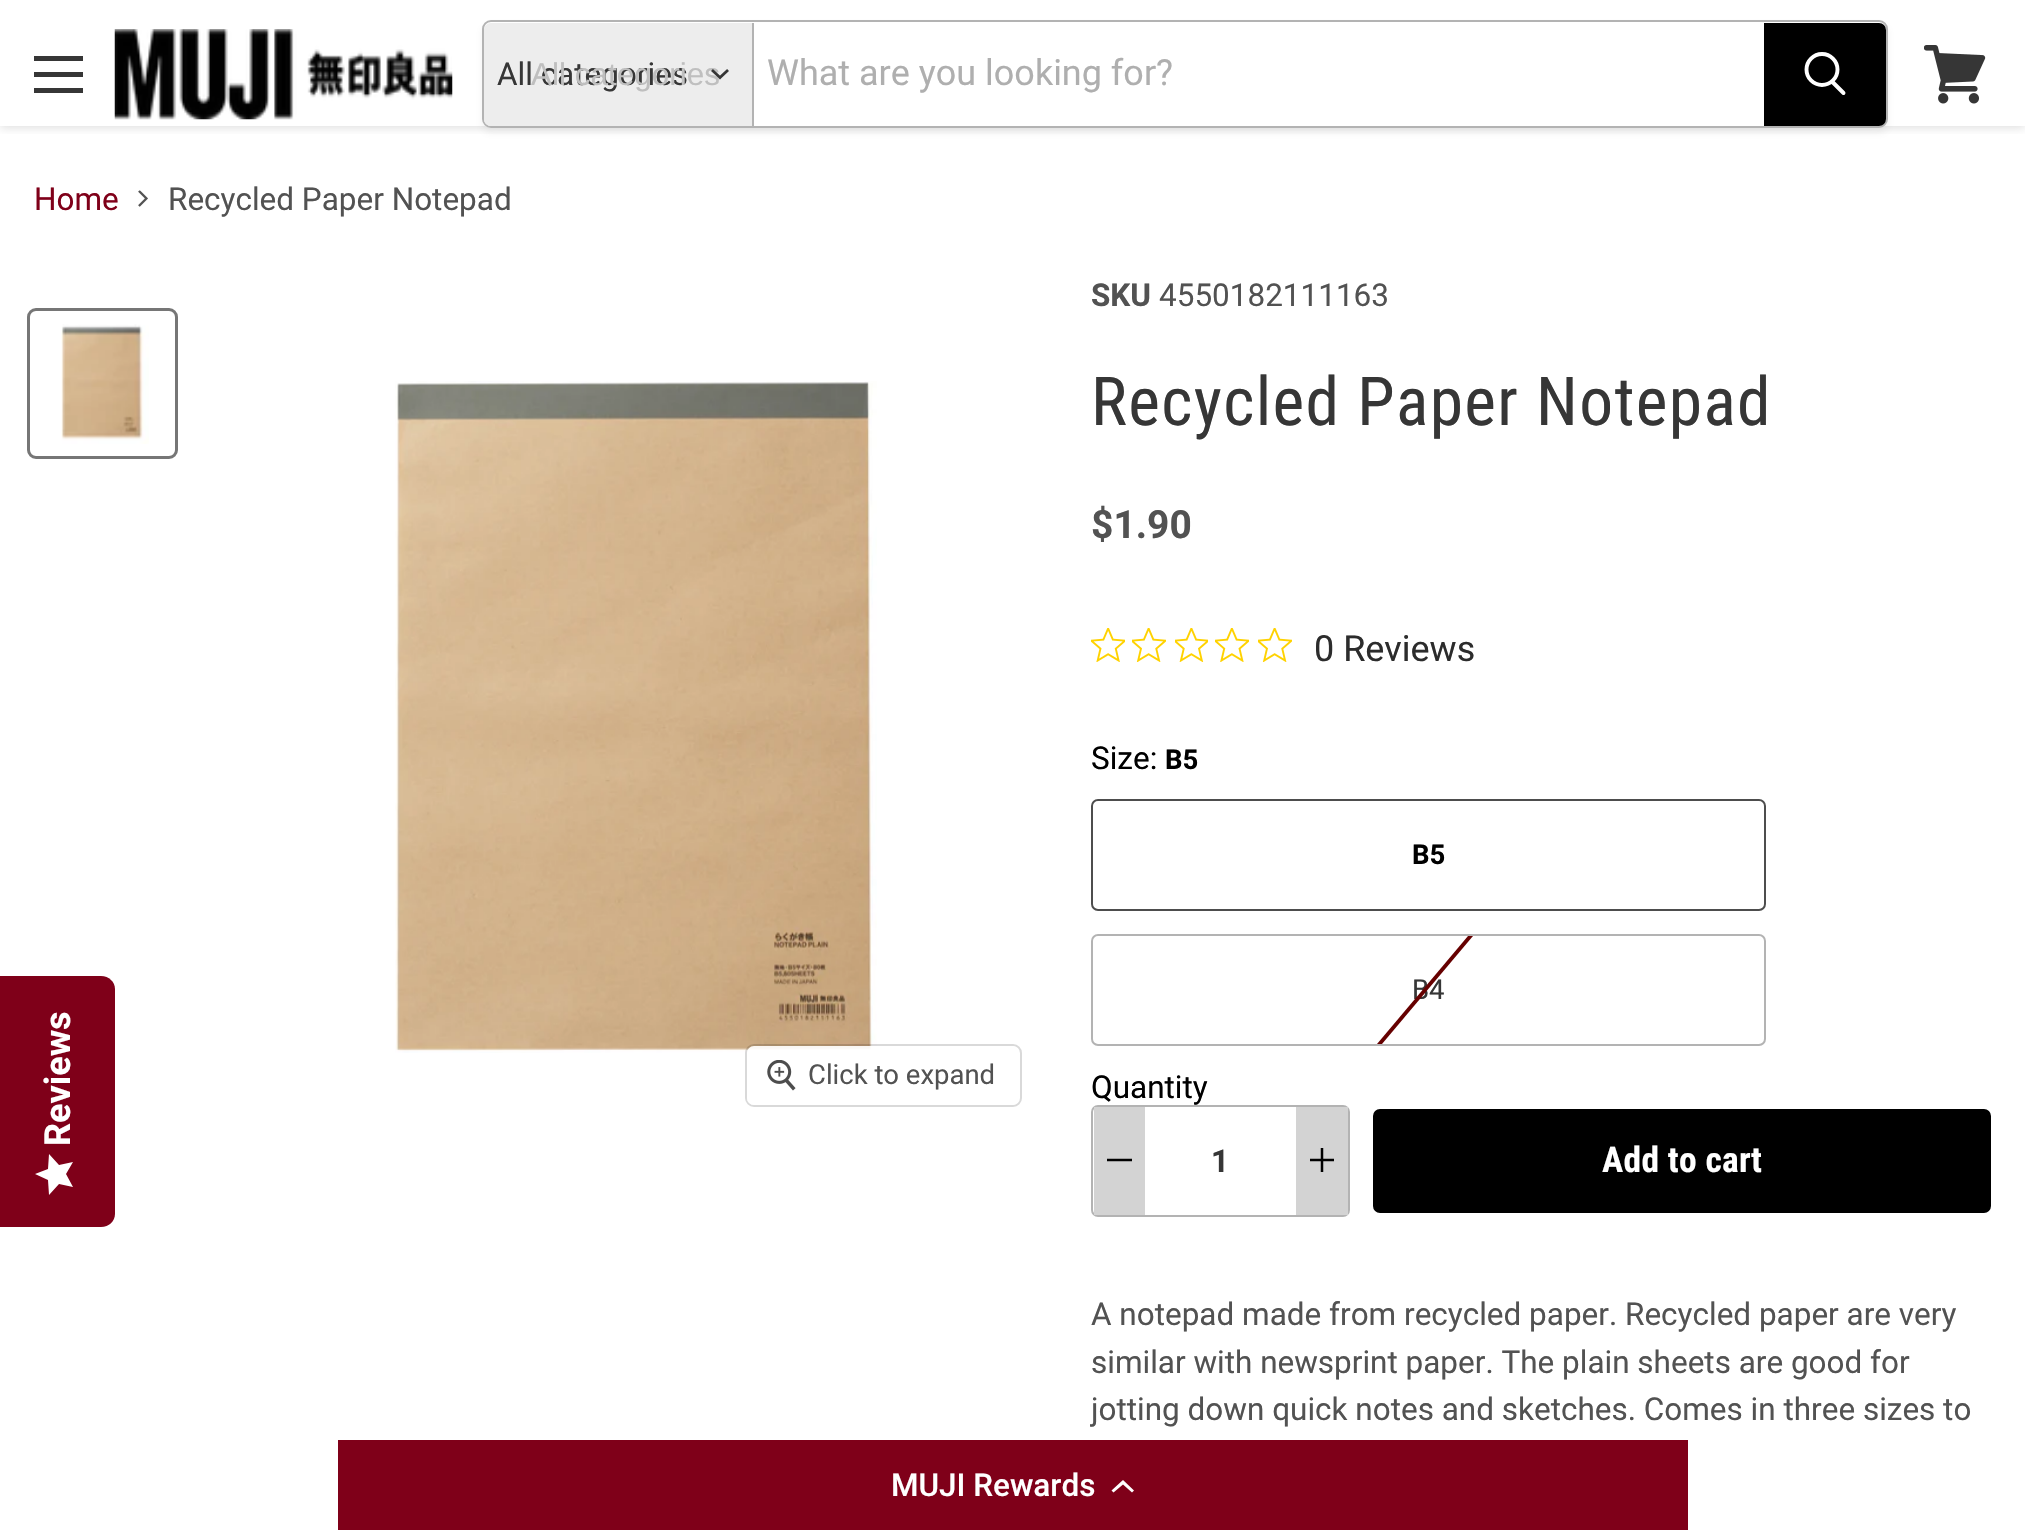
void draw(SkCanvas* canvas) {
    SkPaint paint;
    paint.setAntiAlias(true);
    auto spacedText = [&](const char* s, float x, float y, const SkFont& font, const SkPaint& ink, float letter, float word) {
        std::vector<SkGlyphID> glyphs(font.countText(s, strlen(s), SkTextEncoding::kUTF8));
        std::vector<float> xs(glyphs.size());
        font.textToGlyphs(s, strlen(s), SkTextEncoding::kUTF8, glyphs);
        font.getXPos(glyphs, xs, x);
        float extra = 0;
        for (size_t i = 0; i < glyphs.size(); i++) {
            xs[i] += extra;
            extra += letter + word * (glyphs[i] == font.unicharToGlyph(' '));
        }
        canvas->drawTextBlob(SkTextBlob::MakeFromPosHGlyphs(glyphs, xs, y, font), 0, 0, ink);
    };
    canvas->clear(0xFFFFFFFF);
    canvas->save();
    canvas->clipRect(SkRect::MakeXYWH(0, 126, 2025, 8));
    paint.setColor(0x40808080);
    paint.setMaskFilter(SkMaskFilter::MakeBlur(kNormal_SkBlurStyle, 4.5f));
    canvas->drawRect(SkRect::MakeXYWH(0, 2, 2025, 126), paint);
    paint.setMaskFilter(nullptr);
    canvas->restore();
    paint.setColor(0xFF363636);
    canvas->drawRect(SkRect::MakeXYWH(34, 56, 49, 5), paint);
    canvas->drawRect(SkRect::MakeXYWH(34, 72, 49, 5), paint);
    canvas->drawRect(SkRect::MakeXYWH(34, 88, 49, 5), paint);
    canvas->drawImageRect(SkImages::DeferredFromEncodedData(SkData::MakeFromFileName("img1.png")), SkRect::MakeXYWH(114, 29, 339, 91), SkSamplingOptions());
    canvas->save();
    canvas->clipPath(SkPathBuilder(SkPathFillType::kEvenOdd).moveTo(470, 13).lineTo(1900, 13).lineTo(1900, 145).lineTo(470, 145).close().moveTo(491, 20).lineTo(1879, 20).cubicTo(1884, 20, 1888, 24, 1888, 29).lineTo(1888, 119).cubicTo(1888, 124, 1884, 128, 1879, 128).lineTo(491, 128).cubicTo(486, 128, 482, 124, 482, 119).lineTo(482, 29).cubicTo(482, 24, 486, 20, 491, 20).close().detach(), true);
    paint.setColor(0x1C808080);
    paint.setMaskFilter(SkMaskFilter::MakeBlur(kNormal_SkBlurStyle, 3.5f));
    canvas->drawRoundRect(SkRect::MakeXYWH(482, 25, 1406, 108), 9, 9, paint);
    paint.setMaskFilter(nullptr);
    canvas->restore();
    paint.setStyle(SkPaint::kStroke_Style);
    paint.setStrokeWidth(2);
    paint.setColor(0xFFB3B3B3);
    canvas->drawRoundRect(SkRect::MakeXYWH(483, 21, 1404, 106), 8, 8, paint);
    paint.setStyle(SkPaint::kFill_Style);
    paint.setColor(0xFFEDEDED);
    canvas->drawPath(SkPathBuilder().moveTo(491, 23).lineTo(752, 23).lineTo(752, 126).lineTo(491, 126).cubicTo(487, 126, 484, 123, 484, 119).lineTo(484, 30).cubicTo(484, 26, 487, 23, 491, 23).close().detach(), paint);
    SkFont font1(fontMgr->matchFamilyStyle("Roboto", SkFontStyle::Normal()), 31.5f);
    font1.setSubpixel(true);
    paint.setColor(0xFF363636);
    canvas->drawString("All categories", 497, 85, font1, paint);
    SkFont font2(fontMgr->matchFamilyStyle("Liberation Sans", SkFontStyle::Normal()), 31.5f);
    font2.setSubpixel(true);
    paint.setColor(0xFFBFBFBF);
    canvas->drawString("All categories", 531, 85, font2, paint);
    paint.setStyle(SkPaint::kStroke_Style);
    paint.setStrokeWidth(2.8f);
    paint.setStrokeCap(SkPaint::kSquare_Cap);
    paint.setColor(0xFF363636);
    canvas->drawPath(SkPathBuilder().moveTo(720, 77.5f).lineTo(727, 71).moveTo(720, 77.5f).lineTo(713, 71).detach(), paint);
    paint.setStyle(SkPaint::kFill_Style);
    paint.setColor(0xFFB3B3B3);
    canvas->drawRect(SkRect::MakeXYWH(752, 23, 2, 103), paint);
    SkFont font3(fontMgr->matchFamilyStyle("Roboto", SkFontStyle::Normal()), 36);
    font3.setSubpixel(true);
    paint.setColor(0xFFAFAFAF);
    canvas->drawString("What are you looking for?", 767, 85, font3, paint);
    paint.setColor(0xFF000000);
    canvas->drawPath(SkPathBuilder().moveTo(1765, 24).lineTo(1879, 24).cubicTo(1882.5f, 24, 1885, 26.5f, 1885, 30).lineTo(1885, 119).cubicTo(1885, 122.5f, 1882.5f, 125, 1879, 125).lineTo(1765, 125).close().detach(), paint);
    paint.setStyle(SkPaint::kStroke_Style);
    paint.setStrokeWidth(2);
    paint.setStrokeCap(SkPaint::kButt_Cap);
    canvas->drawPath(SkPathBuilder().moveTo(1765, 24).lineTo(1879, 24).cubicTo(1882.5f, 24, 1885, 26.5f, 1885, 30).lineTo(1885, 119).cubicTo(1885, 122.5f, 1882.5f, 125, 1879, 125).lineTo(1765, 125).close().detach(), paint);
    paint.setStrokeWidth(3.9f);
    paint.setStrokeCap(SkPaint::kRound_Cap);
    paint.setColor(0xFFFFFFFF);
    canvas->drawPath(SkPathBuilder().moveTo(1843.5f, 93).lineTo(1832.5f, 82).detach(), paint);
    paint.setStrokeCap(SkPaint::kButt_Cap);
    canvas->drawCircle(1822, 69.5f, 15.5f, paint);
    canvas->drawImageRect(SkImages::DeferredFromEncodedData(SkData::MakeFromFileName("img2.png")), SkRect::MakeXYWH(1924, 45, 62, 59), SkSamplingOptions());
    paint.setStyle(SkPaint::kFill_Style);
    paint.setColor(0xFF7F0019);
    canvas->drawString("Home", 34, 210, font1, paint);
    canvas->drawImageRect(SkImages::DeferredFromEncodedData(SkData::MakeFromFileName("img3.png")), SkRect::MakeXYWH(138, 190, 10, 17), SkSamplingOptions());
    paint.setColor(0xFF525252);
    canvas->drawString("Recycled Paper Notepad", 168, 210, font1, paint);
    paint.setStyle(SkPaint::kStroke_Style);
    paint.setStrokeWidth(3);
    paint.setColor(0xFF767676);
    canvas->drawRoundRect(SkRect::MakeXYWH(28.5f, 309.5f, 148, 148), 7.5f, 7.5f, paint);
    canvas->drawImageRect(SkImages::DeferredFromEncodedData(SkData::MakeFromFileName("img4.png")), SkRect::MakeXYWH(61, 324, 88, 120), SkSamplingOptions());
    canvas->drawImageRect(SkImages::DeferredFromEncodedData(SkData::MakeFromFileName("img5.png")), SkRect::MakeXYWH(395, 381, 482, 672), SkSamplingOptions());
    paint.setStrokeWidth(2);
    paint.setColor(0x26000000);
    canvas->drawRoundRect(SkRect::MakeXYWH(746, 1045, 275, 61), 8, 8, paint);
    paint.setStyle(SkPaint::kFill_Style);
    paint.setColor(0xE6FFFFFF);
    canvas->drawRoundRect(SkRect::MakeXYWH(747, 1046, 272, 59), 7, 7, paint);
    canvas->drawImageRect(SkImages::DeferredFromEncodedData(SkData::MakeFromFileName("img6.png")), SkRect::MakeXYWH(767, 1060, 29, 31), SkSamplingOptions());
    SkFont font4(fontMgr->matchFamilyStyle("Roboto", SkFontStyle::Normal()), 27.5f);
    font4.setSubpixel(true);
    paint.setColor(0xFF525252);
    canvas->drawString("Click to expand", 808, 1084, font4, paint);
    SkFont font5(fontMgr->matchFamilyStyle("Roboto", SkFontStyle::Bold()), 31.5f);
    font5.setSubpixel(true);
    canvas->drawString("SKU", 1091, 306, font5, paint);
    canvas->drawString("4550182111163", 1159, 306, font1, paint);
    SkFont font6(fontMgr->matchFamilyStyle("Roboto Condensed", SkFontStyle::Normal()), 67.5f);
    font6.setSubpixel(true);
    paint.setColor(0xFF363636);
    spacedText("Recycled Paper Notepad", 1091, 425, font6, paint, 1.35f, 0);
    SkFont font7(fontMgr->matchFamilyStyle("Roboto", SkFontStyle::Bold()), 39);
    font7.setSubpixel(true);
    paint.setColor(0xFF525252);
    canvas->drawString("$1.90", 1091, 538, font7, paint);
    canvas->drawImageRect(SkImages::DeferredFromEncodedData(SkData::MakeFromFileName("img7.png")), SkRect::MakeXYWH(1091, 628, 34, 34), SkSamplingOptions());
    canvas->drawImageRect(SkImages::DeferredFromEncodedData(SkData::MakeFromFileName("img8.png")), SkRect::MakeXYWH(1132, 628, 34, 34), SkSamplingOptions());
    canvas->drawImageRect(SkImages::DeferredFromEncodedData(SkData::MakeFromFileName("img9.png")), SkRect::MakeXYWH(1175, 628, 33, 34), SkSamplingOptions());
    canvas->drawImageRect(SkImages::DeferredFromEncodedData(SkData::MakeFromFileName("img10.png")), SkRect::MakeXYWH(1215, 628, 34, 34), SkSamplingOptions());
    canvas->drawImageRect(SkImages::DeferredFromEncodedData(SkData::MakeFromFileName("img8.png")), SkRect::MakeXYWH(1258, 628, 34, 34), SkSamplingOptions());
    paint.setColor(0xFF2C2C2C);
    canvas->drawString("0 Reviews", 1314, 661, font3, paint);
    paint.setColor(0xFF000000);
    canvas->drawString("Size:", 1091, 769, font1, paint);
    SkFont font8(fontMgr->matchFamilyStyle("Roboto", SkFontStyle::Bold()), 27.5f);
    font8.setSubpixel(true);
    canvas->drawString("B5", 1165, 769, font8, paint);
    paint.setStyle(SkPaint::kStroke_Style);
    paint.setColor(0xFF4D4D4D);
    canvas->drawRoundRect(SkRect::MakeXYWH(1092, 800, 673, 110), 6, 6, paint);
    paint.setStyle(SkPaint::kFill_Style);
    paint.setColor(0xFF000000);
    canvas->drawString("B5", 1412, 864, font8, paint);
    paint.setStyle(SkPaint::kStroke_Style);
    paint.setColor(0xFFB3B3B3);
    canvas->drawRoundRect(SkRect::MakeXYWH(1092, 935, 673, 110), 6, 6, paint);
    paint.setStyle(SkPaint::kFill_Style);
    paint.setColor(0xFF363636);
    canvas->drawString("B4", 1412, 999, font4, paint);
    paint.setColor(0xFF660000);
    canvas->drawPath(SkPathBuilder().moveTo(1377, 1044).lineTo(1468, 936).lineTo(1473, 936).lineTo(1382, 1044).close().detach(), paint);
    paint.setColor(0xFF000000);
    canvas->drawString("Quantity", 1091, 1098, font1, paint);
    paint.setStyle(SkPaint::kStroke_Style);
    paint.setColor(0xFFB3B3B3);
    canvas->drawRoundRect(SkRect::MakeXYWH(1092, 1106, 257, 110), 6, 6, paint);
    paint.setStyle(SkPaint::kFill_Style);
    paint.setColor(0xFFD3D3D3);
    canvas->drawRect(SkRect::MakeXYWH(1094, 1107, 51, 108), paint);
    paint.setStyle(SkPaint::kStroke_Style);
    paint.setStrokeWidth(2.5f);
    paint.setColor(0xFF000000);
    canvas->drawPath(SkPathBuilder().moveTo(1107, 1160).lineTo(1132, 1160).detach(), paint);
    paint.setStyle(SkPaint::kFill_Style);
    paint.setColor(0xFF363636);
    canvas->drawString("1", 1211, 1172, font5, paint);
    paint.setColor(0xFFD3D3D3);
    canvas->drawRect(SkRect::MakeXYWH(1296, 1107, 52, 108), paint);
    canvas->save();
    canvas->clipRect(SkRect::MakeXYWH(1310, 1148, 24, 24));
    paint.setStyle(SkPaint::kStroke_Style);
    paint.setColor(0xFF000000);
    canvas->drawPath(SkPathBuilder().moveTo(1309.5f, 1160).lineTo(1334, 1160).moveTo(1322, 1147.5f).lineTo(1322, 1172).detach(), paint);
    canvas->restore();
    paint.setStyle(SkPaint::kFill_Style);
    canvas->drawRoundRect(SkRect::MakeXYWH(1374, 1110, 616, 102), 6, 6, paint);
    paint.setStyle(SkPaint::kStroke_Style);
    paint.setStrokeWidth(2);
    canvas->drawRoundRect(SkRect::MakeXYWH(1374, 1110, 616, 102), 6, 6, paint);
    SkFont font9(fontMgr->matchFamilyStyle("Roboto Condensed", SkFontStyle::Bold()), 35.5f);
    font9.setSubpixel(true);
    paint.setStyle(SkPaint::kFill_Style);
    paint.setColor(0xFFFFFFFF);
    spacedText("Add to cart", 1602, 1172, font9, paint, 0.3f, 0);
    paint.setColor(0xFF525252);
    canvas->drawString("A notepad made from recycled paper. Recycled paper are very", 1091, 1325, font1, paint);
    canvas->drawString("similar with newsprint paper. The plain sheets are good for", 1091, 1373, font1, paint);
    canvas->drawString("jotting down quick notes and sketches. Comes in three sizes to", 1091, 1420, font1, paint);
    paint.setColor(0xFF7F0019);
    canvas->drawPath(SkPathBuilder().moveTo(0, 1227).lineTo(0, 976).lineTo(101, 976).cubicTo(109, 976, 115, 982, 115, 989).lineTo(115, 1214).cubicTo(115, 1221, 109, 1227, 101, 1227).close().detach(), paint);
    SkFont font10(fontMgr->matchFamilyStyle("Roboto", SkFontStyle::Bold()), 36);
    font10.setSubpixel(true);
    paint.setColor(0xFFFFFFFF);
    canvas->save();
    canvas->rotate(-90, 70, 1146);
    canvas->drawString("Reviews", 70, 1146, font10, paint);
    canvas->restore();
    {
        const SkColor colors[] = {0xFFFFFFFF, 0xFFEAEAEA};
        const float stops[] = {1, 1};
        const SkPoint ends[] = {{35, 1195}, {35, 1154}};
        paint.setShader(SkGradientShader::MakeLinear(ends, colors, stops, 2, SkTileMode::kClamp));
        paint.setAlpha(255);
    }
    canvas->drawPath(SkPathBuilder().moveTo(66, 1174).lineTo(73, 1162).lineTo(59, 1165).lineTo(49, 1154).lineTo(48, 1169).lineTo(35, 1174).lineTo(48, 1180).lineTo(49, 1195).lineTo(59, 1184).lineTo(73, 1187).close().detach(), paint);
    paint.setShader(nullptr);
    paint.setColor(0xFF7F0019);
    canvas->drawRect(SkRect::MakeXYWH(338, 1440, 1350, 90), paint);
    SkFont font11(fontMgr->matchFamilyStyle("Roboto", SkFontStyle(500, SkFontStyle::kNormal_Width, SkFontStyle::kUpright_Slant)), 31.5f);
    font11.setSubpixel(true);
    paint.setColor(0xFFFFFFFF);
    canvas->drawString("MUJI Rewards", 891, 1496, font11, paint);
    canvas->drawPath(SkPathBuilder().moveTo(1123, 1484.5f).lineTo(1113.5f, 1492.5f).lineTo(1111.5f, 1490.5f).lineTo(1123, 1480).lineTo(1134, 1490.5f).lineTo(1132, 1492.5f).close().detach(), paint);
}
